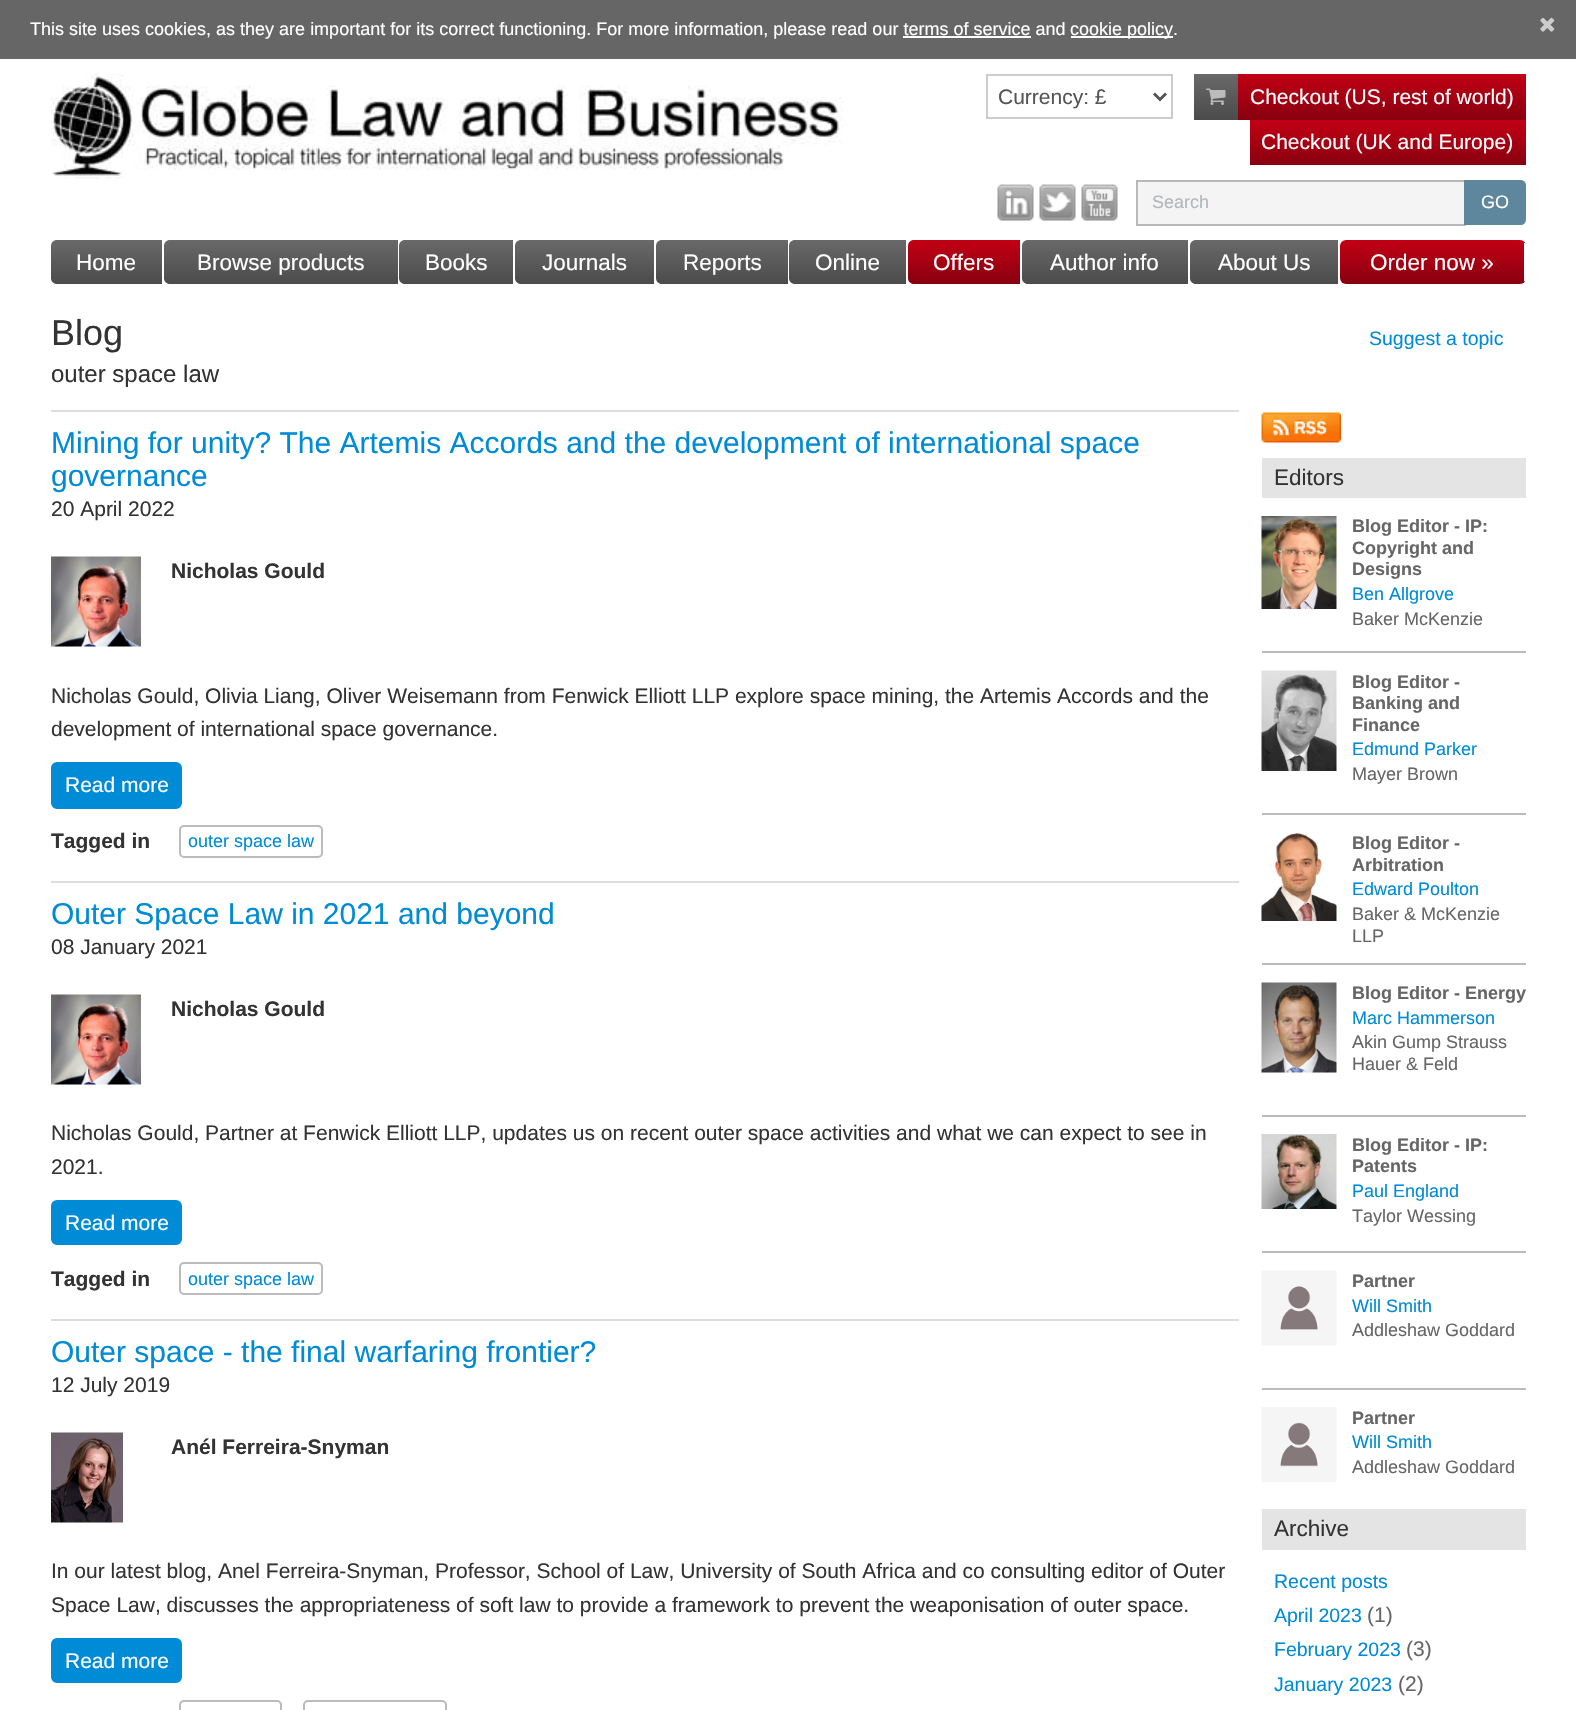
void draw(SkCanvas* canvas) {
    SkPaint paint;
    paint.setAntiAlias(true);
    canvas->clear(0xFFFFFFFF);
    paint.setColor(0xFF666666);
    canvas->drawRect(SkRect::MakeXYWH(0, 0, 1576, 59), paint);
    SkFont font1(fontMgr->matchFamilyStyle("Liberation Sans", SkFontStyle::Normal()), 18);
    font1.setSubpixel(true);
    paint.setColor(0xFFFFFFFF);
    canvas->drawString("This site uses cookies, as they are important for its correct functioning. For more information, please read our terms of service and", 30, 35, font1, paint);
    canvas->drawRect(SkRect::MakeXYWH(1071, 36, 102, 2), paint);
    canvas->drawString("cookie policy.", 1070, 35, font1, paint);
    canvas->drawRect(SkRect::MakeXYWH(903, 36, 128, 2), paint);
    canvas->drawImageRect(SkImages::DeferredFromEncodedData(SkData::MakeFromFileName("img1.png")), SkRect::MakeXYWH(1540, 17, 15, 15), SkSamplingOptions());
    canvas->drawImageRect(SkImages::DeferredFromEncodedData(SkData::MakeFromFileName("img2.png")), SkRect::MakeXYWH(51, 73, 792, 106), SkSamplingOptions());
    paint.setStyle(SkPaint::kStroke_Style);
    paint.setStrokeWidth(2);
    paint.setColor(0xFFCCCCCC);
    canvas->drawRect(SkRect::MakeXYWH(987, 75, 185, 43), paint);
    paint.setStrokeWidth(3);
    paint.setColor(0xFF555555);
    canvas->drawPath(SkPathBuilder().moveTo(1154, 93.5f).lineTo(1160, 99.5f).lineTo(1166, 93.5f).detach(), paint);
    SkFont font2(fontMgr->matchFamilyStyle("Liberation Sans", SkFontStyle::Normal()), 21);
    font2.setSubpixel(true);
    paint.setStyle(SkPaint::kFill_Style);
    canvas->drawString("Currency: £", 998, 104, font2, paint);
    {
        const SkColor colors[] = {0xFF696969, 0xFF4B4B4B};
        const float stops[] = {0, 1};
        const SkPoint ends[] = {{1216, 74}, {1216, 120}};
        paint.setShader(SkGradientShader::MakeLinear(ends, colors, stops, 2, SkTileMode::kClamp));
        paint.setAlpha(255);
    }
    canvas->drawRect(SkRect::MakeXYWH(1194, 74, 44, 46), paint);
    canvas->drawImageRect(SkImages::DeferredFromEncodedData(SkData::MakeFromFileName("img3.png")), SkRect::MakeXYWH(1206, 88, 20, 17), SkSamplingOptions());
    {
        const SkColor colors[] = {0xFFC30015, 0xFF88000F};
        const float stops[] = {0, 1};
        const SkPoint ends[] = {{1382, 73}, {1382, 120}};
        paint.setShader(SkGradientShader::MakeLinear(ends, colors, stops, 2, SkTileMode::kClamp));
        paint.setAlpha(255);
    }
    canvas->drawRect(SkRect::MakeXYWH(1238, 74, 288, 46), paint);
    paint.setShader(nullptr);
    paint.setColor(0xFFFFFFFF);
    canvas->drawString("Checkout (US, rest of world)", 1250, 104, font2, paint);
    {
        const SkColor colors[] = {0xFFC30015, 0xFF88000F};
        const float stops[] = {0, 1};
        const SkPoint ends[] = {{1388, 120}, {1388, 165}};
        paint.setShader(SkGradientShader::MakeLinear(ends, colors, stops, 2, SkTileMode::kClamp));
        paint.setAlpha(255);
    }
    canvas->drawRect(SkRect::MakeXYWH(1250, 120, 276, 45), paint);
    paint.setShader(nullptr);
    paint.setColor(0xFFFFFFFF);
    canvas->drawString("Checkout (UK and Europe)", 1261, 149, font2, paint);
    canvas->drawImageRect(SkImages::DeferredFromEncodedData(SkData::MakeFromFileName("img4.png")), SkRect::MakeXYWH(997, 184, 37, 37), SkSamplingOptions());
    canvas->drawImageRect(SkImages::DeferredFromEncodedData(SkData::MakeFromFileName("img5.png")), SkRect::MakeXYWH(1039, 184, 37, 37), SkSamplingOptions());
    canvas->drawImageRect(SkImages::DeferredFromEncodedData(SkData::MakeFromFileName("img6.png")), SkRect::MakeXYWH(1081, 184, 37, 37), SkSamplingOptions());
    paint.setColor(0xFFF4F4F4);
    canvas->drawRect(SkRect::MakeXYWH(1138, 182, 326, 42), paint);
    paint.setColor(0xFFB9B9B9);
    canvas->drawRect(SkRect::MakeXYWH(1136, 180, 330, 2), paint);
    canvas->drawRect(SkRect::MakeXYWH(1136, 224, 330, 2), paint);
    canvas->drawRect(SkRect::MakeXYWH(1136, 180, 2, 45), paint);
    paint.setColor(0xFFB1B7BA);
    canvas->drawString("Search", 1152, 208, font1, paint);
    paint.setColor(0xFF5E879E);
    canvas->drawPath(SkPathBuilder().moveTo(1465, 181).lineTo(1521, 181).cubicTo(1523, 181, 1525, 183, 1525, 185).lineTo(1525, 220).cubicTo(1525, 222, 1523, 224, 1521, 224).lineTo(1465, 224).close().detach(), paint);
    paint.setStyle(SkPaint::kStroke_Style);
    paint.setStrokeWidth(2);
    canvas->drawPath(SkPathBuilder().moveTo(1465, 181).lineTo(1521, 181).cubicTo(1523, 181, 1525, 183, 1525, 185).lineTo(1525, 220).cubicTo(1525, 222, 1523, 224, 1521, 224).lineTo(1465, 224).close().detach(), paint);
    paint.setStyle(SkPaint::kFill_Style);
    paint.setColor(0xFFFFFFFF);
    canvas->drawString("GO", 1481, 208, font1, paint);
    {
        const SkColor colors[] = {0xFF696969, 0xFF4B4B4B};
        const float stops[] = {0, 1};
        const SkPoint ends[] = {{107, 240}, {107, 284}};
        paint.setShader(SkGradientShader::MakeLinear(ends, colors, stops, 2, SkTileMode::kClamp));
        paint.setAlpha(255);
    }
    canvas->drawPath(SkPathBuilder().moveTo(57, 240).lineTo(164, 240).lineTo(164, 284).lineTo(57, 284).cubicTo(53.5f, 284, 51, 281.5f, 51, 278).lineTo(51, 246).cubicTo(51, 242.5f, 53.5f, 240, 57, 240).close().detach(), paint);
    paint.setShader(nullptr);
    paint.setColor(0xFFFFFFFF);
    canvas->drawRect(SkRect::MakeXYWH(162, 240, 2, 44), paint);
    SkFont font3(fontMgr->matchFamilyStyle("Liberation Sans", SkFontStyle::Normal()), 22.5f);
    font3.setSubpixel(true);
    canvas->drawString("Home", 76, 270, font3, paint);
    {
        const SkColor colors[] = {0xFF696969, 0xFF4B4B4B};
        const float stops[] = {0, 1};
        const SkPoint ends[] = {{281, 240}, {281, 284}};
        paint.setShader(SkGradientShader::MakeLinear(ends, colors, stops, 2, SkTileMode::kClamp));
        paint.setAlpha(255);
    }
    canvas->drawPath(SkPathBuilder().moveTo(170, 240).lineTo(399, 240).lineTo(399, 284).lineTo(170, 284).cubicTo(166.5f, 284, 164, 281.5f, 164, 278).lineTo(164, 246).cubicTo(164, 242.5f, 166.5f, 240, 170, 240).close().detach(), paint);
    paint.setShader(nullptr);
    paint.setColor(0xFFFFFFFF);
    canvas->drawRect(SkRect::MakeXYWH(398, 240, 1, 44), paint);
    canvas->drawString("Browse products", 197, 270, font3, paint);
    {
        const SkColor colors[] = {0xFF696969, 0xFF4B4B4B};
        const float stops[] = {0, 1};
        const SkPoint ends[] = {{456, 240}, {456, 284}};
        paint.setShader(SkGradientShader::MakeLinear(ends, colors, stops, 2, SkTileMode::kClamp));
        paint.setAlpha(255);
    }
    canvas->drawPath(SkPathBuilder().moveTo(405, 240).lineTo(515, 240).lineTo(515, 284).lineTo(405, 284).cubicTo(401.5f, 284, 399, 281.5f, 399, 278).lineTo(399, 246).cubicTo(399, 242.5f, 401.5f, 240, 405, 240).close().detach(), paint);
    paint.setShader(nullptr);
    paint.setColor(0xFFFFFFFF);
    canvas->drawRect(SkRect::MakeXYWH(513, 240, 2, 44), paint);
    canvas->drawString("Books", 425, 270, font3, paint);
    {
        const SkColor colors[] = {0xFF696969, 0xFF4B4B4B};
        const float stops[] = {0, 1};
        const SkPoint ends[] = {{584, 240}, {584, 284}};
        paint.setShader(SkGradientShader::MakeLinear(ends, colors, stops, 2, SkTileMode::kClamp));
        paint.setAlpha(255);
    }
    canvas->drawPath(SkPathBuilder().moveTo(521, 240).lineTo(656, 240).lineTo(656, 284).lineTo(521, 284).cubicTo(517.5f, 284, 515, 281.5f, 515, 278).lineTo(515, 246).cubicTo(515, 242.5f, 517.5f, 240, 521, 240).close().detach(), paint);
    paint.setShader(nullptr);
    paint.setColor(0xFFFFFFFF);
    canvas->drawRect(SkRect::MakeXYWH(654, 240, 2, 44), paint);
    canvas->drawString("Journals", 542, 270, font3, paint);
    {
        const SkColor colors[] = {0xFF696969, 0xFF4B4B4B};
        const float stops[] = {0, 1};
        const SkPoint ends[] = {{722, 240}, {722, 284}};
        paint.setShader(SkGradientShader::MakeLinear(ends, colors, stops, 2, SkTileMode::kClamp));
        paint.setAlpha(255);
    }
    canvas->drawPath(SkPathBuilder().moveTo(662, 240).lineTo(789, 240).lineTo(789, 284).lineTo(662, 284).cubicTo(658.5f, 284, 656, 281.5f, 656, 278).lineTo(656, 246).cubicTo(656, 242.5f, 658.5f, 240, 662, 240).close().detach(), paint);
    paint.setShader(nullptr);
    paint.setColor(0xFFFFFFFF);
    canvas->drawRect(SkRect::MakeXYWH(788, 240, 1, 44), paint);
    canvas->drawString("Reports", 683, 270, font3, paint);
    {
        const SkColor colors[] = {0xFF696969, 0xFF4B4B4B};
        const float stops[] = {0, 1};
        const SkPoint ends[] = {{848, 240}, {848, 284}};
        paint.setShader(SkGradientShader::MakeLinear(ends, colors, stops, 2, SkTileMode::kClamp));
        paint.setAlpha(255);
    }
    canvas->drawPath(SkPathBuilder().moveTo(795, 240).lineTo(908, 240).lineTo(908, 284).lineTo(795, 284).cubicTo(791.5f, 284, 789, 281.5f, 789, 278).lineTo(789, 246).cubicTo(789, 242.5f, 791.5f, 240, 795, 240).close().detach(), paint);
    paint.setShader(nullptr);
    paint.setColor(0xFFFFFFFF);
    canvas->drawRect(SkRect::MakeXYWH(906, 240, 2, 44), paint);
    canvas->drawString("Online", 815, 270, font3, paint);
    {
        const SkColor colors[] = {0xFFC30015, 0xFF88000F};
        const float stops[] = {0, 1};
        const SkPoint ends[] = {{964, 240}, {964, 284}};
        paint.setShader(SkGradientShader::MakeLinear(ends, colors, stops, 2, SkTileMode::kClamp));
        paint.setAlpha(255);
    }
    canvas->drawPath(SkPathBuilder().moveTo(914, 240).lineTo(1022, 240).lineTo(1022, 284).lineTo(914, 284).cubicTo(910.5f, 284, 908, 281.5f, 908, 278).lineTo(908, 246).cubicTo(908, 242.5f, 910.5f, 240, 914, 240).close().detach(), paint);
    paint.setShader(nullptr);
    paint.setColor(0xFFFFFFFF);
    canvas->drawRect(SkRect::MakeXYWH(1020, 240, 2, 44), paint);
    canvas->drawString("Offers", 933, 270, font3, paint);
    {
        const SkColor colors[] = {0xFF696969, 0xFF4B4B4B};
        const float stops[] = {0, 1};
        const SkPoint ends[] = {{1105, 240}, {1105, 284}};
        paint.setShader(SkGradientShader::MakeLinear(ends, colors, stops, 2, SkTileMode::kClamp));
        paint.setAlpha(255);
    }
    canvas->drawPath(SkPathBuilder().moveTo(1028, 240).lineTo(1190, 240).lineTo(1190, 284).lineTo(1028, 284).cubicTo(1024.5f, 284, 1022, 281.5f, 1022, 278).lineTo(1022, 246).cubicTo(1022, 242.5f, 1024.5f, 240, 1028, 240).close().detach(), paint);
    paint.setShader(nullptr);
    paint.setColor(0xFFFFFFFF);
    canvas->drawRect(SkRect::MakeXYWH(1188, 240, 2, 44), paint);
    canvas->drawString("Author info", 1050, 270, font3, paint);
    {
        const SkColor colors[] = {0xFF696969, 0xFF4B4B4B};
        const float stops[] = {0, 1};
        const SkPoint ends[] = {{1264, 240}, {1264, 284}};
        paint.setShader(SkGradientShader::MakeLinear(ends, colors, stops, 2, SkTileMode::kClamp));
        paint.setAlpha(255);
    }
    canvas->drawPath(SkPathBuilder().moveTo(1196, 240).lineTo(1340, 240).lineTo(1340, 284).lineTo(1196, 284).cubicTo(1192.5f, 284, 1190, 281.5f, 1190, 278).lineTo(1190, 246).cubicTo(1190, 242.5f, 1192.5f, 240, 1196, 240).close().detach(), paint);
    paint.setShader(nullptr);
    paint.setColor(0xFFFFFFFF);
    canvas->drawRect(SkRect::MakeXYWH(1338, 240, 2, 44), paint);
    canvas->drawString("About Us", 1218, 270, font3, paint);
    {
        const SkColor colors[] = {0xFFC30015, 0xFF88000F};
        const float stops[] = {0, 1};
        const SkPoint ends[] = {{1432, 240}, {1432, 284}};
        paint.setShader(SkGradientShader::MakeLinear(ends, colors, stops, 2, SkTileMode::kClamp));
        paint.setAlpha(255);
    }
    canvas->drawRoundRect(SkRect::MakeXYWH(1340, 240, 186, 44), 6, 6, paint);
    paint.setShader(nullptr);
    paint.setColor(0xFFFFFFFF);
    canvas->drawRect(SkRect::MakeXYWH(1524, 243, 2, 38), paint);
    canvas->drawString("Order now »", 1370, 270, font3, paint);
    SkFont font4(fontMgr->matchFamilyStyle("Liberation Sans", SkFontStyle::Normal()), 36);
    font4.setSubpixel(true);
    paint.setColor(0xFF333333);
    canvas->drawString("Blog", 51, 345, font4, paint);
    SkFont font5(fontMgr->matchFamilyStyle("Liberation Sans", SkFontStyle::Normal()), 19.5f);
    font5.setSubpixel(true);
    paint.setColor(0xFF008BD6);
    canvas->drawString("Suggest a topic", 1369, 345, font5, paint);
    SkFont font6(fontMgr->matchFamilyStyle("Liberation Sans", SkFontStyle::Normal()), 24);
    font6.setSubpixel(true);
    paint.setColor(0xFF333333);
    canvas->drawString("outer space law", 51, 382, font6, paint);
    paint.setColor(0xFFDDDDDD);
    canvas->drawRect(SkRect::MakeXYWH(51, 410, 1188, 2), paint);
    SkFont font7(fontMgr->matchFamilyStyle("Liberation Sans", SkFontStyle::Normal()), 30);
    font7.setSubpixel(true);
    paint.setColor(0xFF008BD6);
    canvas->drawString("Mining for unity? The Artemis Accords and the development of international space", 51, 453, font7, paint);
    canvas->drawString("governance", 51, 486, font7, paint);
    paint.setColor(0xFF333333);
    canvas->drawString("20 April 2022", 51, 516, font2, paint);
    canvas->drawImageRect(SkImages::DeferredFromEncodedData(SkData::MakeFromFileName("img7.png")), SkRect::MakeXYWH(51, 556, 90, 91), SkSamplingOptions());
    SkFont font8(fontMgr->matchFamilyStyle("Liberation Sans", SkFontStyle::Bold()), 21);
    font8.setSubpixel(true);
    canvas->drawString("Nicholas Gould", 171, 578, font8, paint);
    canvas->drawString("Nicholas Gould, Olivia Liang, Oliver Weisemann from Fenwick Elliott LLP explore space mining, the Artemis Accords and the", 51, 703, font2, paint);
    canvas->drawString("development of international space governance.", 51, 736, font2, paint);
    paint.setColor(0xFF008BD6);
    canvas->drawRoundRect(SkRect::MakeXYWH(52, 763, 129, 45), 5, 5, paint);
    paint.setStyle(SkPaint::kStroke_Style);
    canvas->drawRoundRect(SkRect::MakeXYWH(52, 763, 129, 45), 5, 5, paint);
    paint.setStyle(SkPaint::kFill_Style);
    paint.setColor(0xFFFFFFFF);
    canvas->drawString("Read more", 65, 792, font2, paint);
    paint.setColor(0xFF333333);
    canvas->drawString("Tagged in", 51, 848, font8, paint);
    paint.setStyle(SkPaint::kStroke_Style);
    paint.setColor(0xFFBBBBBB);
    canvas->drawRoundRect(SkRect::MakeXYWH(180, 826, 142, 31), 4, 4, paint);
    paint.setStyle(SkPaint::kFill_Style);
    paint.setColor(0xFF008BD6);
    canvas->drawString("outer space law", 188, 847, font1, paint);
    paint.setColor(0xFFDDDDDD);
    canvas->drawRect(SkRect::MakeXYWH(51, 881, 1188, 2), paint);
    paint.setColor(0xFF008BD6);
    canvas->drawString("Outer Space Law in 2021 and beyond", 51, 924, font7, paint);
    paint.setColor(0xFF333333);
    canvas->drawString("08 January 2021", 51, 954, font2, paint);
    canvas->drawImageRect(SkImages::DeferredFromEncodedData(SkData::MakeFromFileName("img8.png")), SkRect::MakeXYWH(51, 994, 90, 91), SkSamplingOptions());
    canvas->drawString("Nicholas Gould", 171, 1016, font8, paint);
    canvas->drawString("Nicholas Gould, Partner at Fenwick Elliott LLP, updates us on recent outer space activities and what we can expect to see in", 51, 1140, font2, paint);
    canvas->drawString("2021.", 51, 1174, font2, paint);
    paint.setColor(0xFF008BD6);
    canvas->drawRoundRect(SkRect::MakeXYWH(52, 1201, 129, 43), 5, 5, paint);
    paint.setStyle(SkPaint::kStroke_Style);
    canvas->drawRoundRect(SkRect::MakeXYWH(52, 1201, 129, 43), 5, 5, paint);
    paint.setStyle(SkPaint::kFill_Style);
    paint.setColor(0xFFFFFFFF);
    canvas->drawString("Read more", 65, 1230, font2, paint);
    paint.setColor(0xFF333333);
    canvas->drawString("Tagged in", 51, 1286, font8, paint);
    paint.setStyle(SkPaint::kStroke_Style);
    paint.setColor(0xFFBBBBBB);
    canvas->drawRoundRect(SkRect::MakeXYWH(180, 1263, 142, 31), 4, 4, paint);
    paint.setStyle(SkPaint::kFill_Style);
    paint.setColor(0xFF008BD6);
    canvas->drawString("outer space law", 188, 1285, font1, paint);
    paint.setColor(0xFFDDDDDD);
    canvas->drawRect(SkRect::MakeXYWH(51, 1319, 1188, 2), paint);
    paint.setColor(0xFF008BD6);
    canvas->drawString("Outer space - the final warfaring frontier?", 51, 1362, font7, paint);
    paint.setColor(0xFF333333);
    canvas->drawString("12 July 2019", 51, 1392, font2, paint);
    canvas->drawImageRect(SkImages::DeferredFromEncodedData(SkData::MakeFromFileName("img9.png")), SkRect::MakeXYWH(51, 1432, 72, 91), SkSamplingOptions());
    canvas->drawString("Anél Ferreira-Snyman", 171, 1454, font8, paint);
    canvas->drawString("In our latest blog, Anel Ferreira-Snyman, Professor, School of Law, University of South Africa and co consulting editor of Outer", 51, 1578, font2, paint);
    canvas->drawString("Space Law, discusses the appropriateness of soft law to provide a framework to prevent the weaponisation of outer space.", 51, 1612, font2, paint);
    paint.setColor(0xFF008BD6);
    canvas->drawRoundRect(SkRect::MakeXYWH(52, 1639, 129, 43), 5, 5, paint);
    paint.setStyle(SkPaint::kStroke_Style);
    canvas->drawRoundRect(SkRect::MakeXYWH(52, 1639, 129, 43), 5, 5, paint);
    paint.setStyle(SkPaint::kFill_Style);
    paint.setColor(0xFFFFFFFF);
    canvas->drawString("Read more", 65, 1668, font2, paint);
    paint.setStyle(SkPaint::kStroke_Style);
    paint.setColor(0xFFBBBBBB);
    canvas->drawRoundRect(SkRect::MakeXYWH(180, 1701, 101, 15), 4, 4, paint);
    canvas->drawRoundRect(SkRect::MakeXYWH(304, 1701, 142, 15), 4, 4, paint);
    canvas->drawImageRect(SkImages::DeferredFromEncodedData(SkData::MakeFromFileName("img10.png")), SkRect::MakeXYWH(1261, 412, 80, 31), SkSamplingOptions());
    paint.setStyle(SkPaint::kFill_Style);
    paint.setColor(0xFFE4E4E4);
    canvas->drawRect(SkRect::MakeXYWH(1262, 458, 264, 40), paint);
    paint.setColor(0xFF333333);
    canvas->drawString("Editors", 1274, 485, font3, paint);
    canvas->drawImageRect(SkImages::DeferredFromEncodedData(SkData::MakeFromFileName("img11.png")), SkRect::MakeXYWH(1261, 516, 76, 93), SkSamplingOptions());
    SkFont font9(fontMgr->matchFamilyStyle("Liberation Sans", SkFontStyle::Bold()), 18);
    font9.setSubpixel(true);
    paint.setColor(0xFF666666);
    canvas->drawString("Blog Editor - IP:", 1352, 532, font9, paint);
    canvas->drawString("Copyright and", 1352, 554, font9, paint);
    canvas->drawString("Designs", 1352, 575, font9, paint);
    paint.setColor(0xFF008BD6);
    canvas->drawString("Ben Allgrove", 1352, 600, font1, paint);
    paint.setColor(0xFF666666);
    canvas->drawString("Baker McKenzie", 1352, 625, font1, paint);
    paint.setColor(0xFFBBBBBB);
    canvas->drawRect(SkRect::MakeXYWH(1262, 651, 264, 2), paint);
    canvas->drawImageRect(SkImages::DeferredFromEncodedData(SkData::MakeFromFileName("img12.png")), SkRect::MakeXYWH(1261, 670, 76, 101), SkSamplingOptions());
    paint.setColor(0xFF666666);
    canvas->drawString("Blog Editor -", 1352, 688, font9, paint);
    canvas->drawString("Banking and", 1352, 709, font9, paint);
    canvas->drawString("Finance", 1352, 731, font9, paint);
    paint.setColor(0xFF008BD6);
    canvas->drawString("Edmund Parker", 1352, 755, font1, paint);
    paint.setColor(0xFF666666);
    canvas->drawString("Mayer Brown", 1352, 780, font1, paint);
    paint.setColor(0xFFBBBBBB);
    canvas->drawRect(SkRect::MakeXYWH(1262, 813, 264, 2), paint);
    canvas->drawImageRect(SkImages::DeferredFromEncodedData(SkData::MakeFromFileName("img13.png")), SkRect::MakeXYWH(1261, 832, 76, 89), SkSamplingOptions());
    paint.setColor(0xFF666666);
    canvas->drawString("Blog Editor -", 1352, 849, font9, paint);
    canvas->drawString("Arbitration", 1352, 871, font9, paint);
    paint.setColor(0xFF008BD6);
    canvas->drawString("Edward Poulton", 1352, 895, font1, paint);
    paint.setColor(0xFF666666);
    canvas->drawString("Baker & McKenzie", 1352, 920, font1, paint);
    canvas->drawString("LLP", 1352, 942, font1, paint);
    paint.setColor(0xFFBBBBBB);
    canvas->drawRect(SkRect::MakeXYWH(1262, 963, 264, 2), paint);
    canvas->drawImageRect(SkImages::DeferredFromEncodedData(SkData::MakeFromFileName("img14.png")), SkRect::MakeXYWH(1261, 982, 76, 91), SkSamplingOptions());
    paint.setColor(0xFF666666);
    canvas->drawString("Blog Editor - Energy", 1352, 999, font9, paint);
    paint.setColor(0xFF008BD6);
    canvas->drawString("Marc Hammerson", 1352, 1024, font1, paint);
    paint.setColor(0xFF666666);
    canvas->drawString("Akin Gump Strauss", 1352, 1048, font1, paint);
    canvas->drawString("Hauer & Feld", 1352, 1070, font1, paint);
    paint.setColor(0xFFBBBBBB);
    canvas->drawRect(SkRect::MakeXYWH(1262, 1115, 264, 2), paint);
    canvas->drawImageRect(SkImages::DeferredFromEncodedData(SkData::MakeFromFileName("img15.png")), SkRect::MakeXYWH(1261, 1134, 76, 75), SkSamplingOptions());
    paint.setColor(0xFF666666);
    canvas->drawString("Blog Editor - IP:", 1352, 1151, font9, paint);
    canvas->drawString("Patents", 1352, 1172, font9, paint);
    paint.setColor(0xFF008BD6);
    canvas->drawString("Paul England", 1352, 1197, font1, paint);
    paint.setColor(0xFF666666);
    canvas->drawString("Taylor Wessing", 1352, 1222, font1, paint);
    paint.setColor(0xFFBBBBBB);
    canvas->drawRect(SkRect::MakeXYWH(1262, 1251, 264, 2), paint);
    canvas->drawImageRect(SkImages::DeferredFromEncodedData(SkData::MakeFromFileName("img16.png")), SkRect::MakeXYWH(1261, 1270, 76, 76), SkSamplingOptions());
    paint.setColor(0xFF666666);
    canvas->drawString("Partner", 1352, 1287, font9, paint);
    paint.setColor(0xFF008BD6);
    canvas->drawString("Will Smith", 1352, 1312, font1, paint);
    paint.setColor(0xFF666666);
    canvas->drawString("Addleshaw Goddard", 1352, 1336, font1, paint);
    paint.setColor(0xFFBBBBBB);
    canvas->drawRect(SkRect::MakeXYWH(1262, 1388, 264, 2), paint);
    canvas->drawImageRect(SkImages::DeferredFromEncodedData(SkData::MakeFromFileName("img17.png")), SkRect::MakeXYWH(1261, 1407, 76, 75), SkSamplingOptions());
    paint.setColor(0xFF666666);
    canvas->drawString("Partner", 1352, 1424, font9, paint);
    paint.setColor(0xFF008BD6);
    canvas->drawString("Will Smith", 1352, 1448, font1, paint);
    paint.setColor(0xFF666666);
    canvas->drawString("Addleshaw Goddard", 1352, 1473, font1, paint);
    paint.setColor(0xFFE4E4E4);
    canvas->drawRect(SkRect::MakeXYWH(1262, 1509, 264, 41), paint);
    paint.setColor(0xFF333333);
    canvas->drawString("Archive", 1274, 1536, font3, paint);
    paint.setColor(0xFF008BD6);
    canvas->drawString("Recent posts", 1274, 1588, font5, paint);
    canvas->drawString("April 2023", 1274, 1622, font5, paint);
    paint.setColor(0xFF666666);
    canvas->drawString("(1)", 1367, 1622, font2, paint);
    paint.setColor(0xFF008BD6);
    canvas->drawString("February 2023", 1274, 1656, font5, paint);
    paint.setColor(0xFF666666);
    canvas->drawString("(3)", 1406, 1656, font2, paint);
    paint.setColor(0xFF008BD6);
    canvas->drawString("January 2023", 1274, 1691, font5, paint);
    paint.setColor(0xFF666666);
    canvas->drawString("(2)", 1398, 1691, font2, paint);
}
